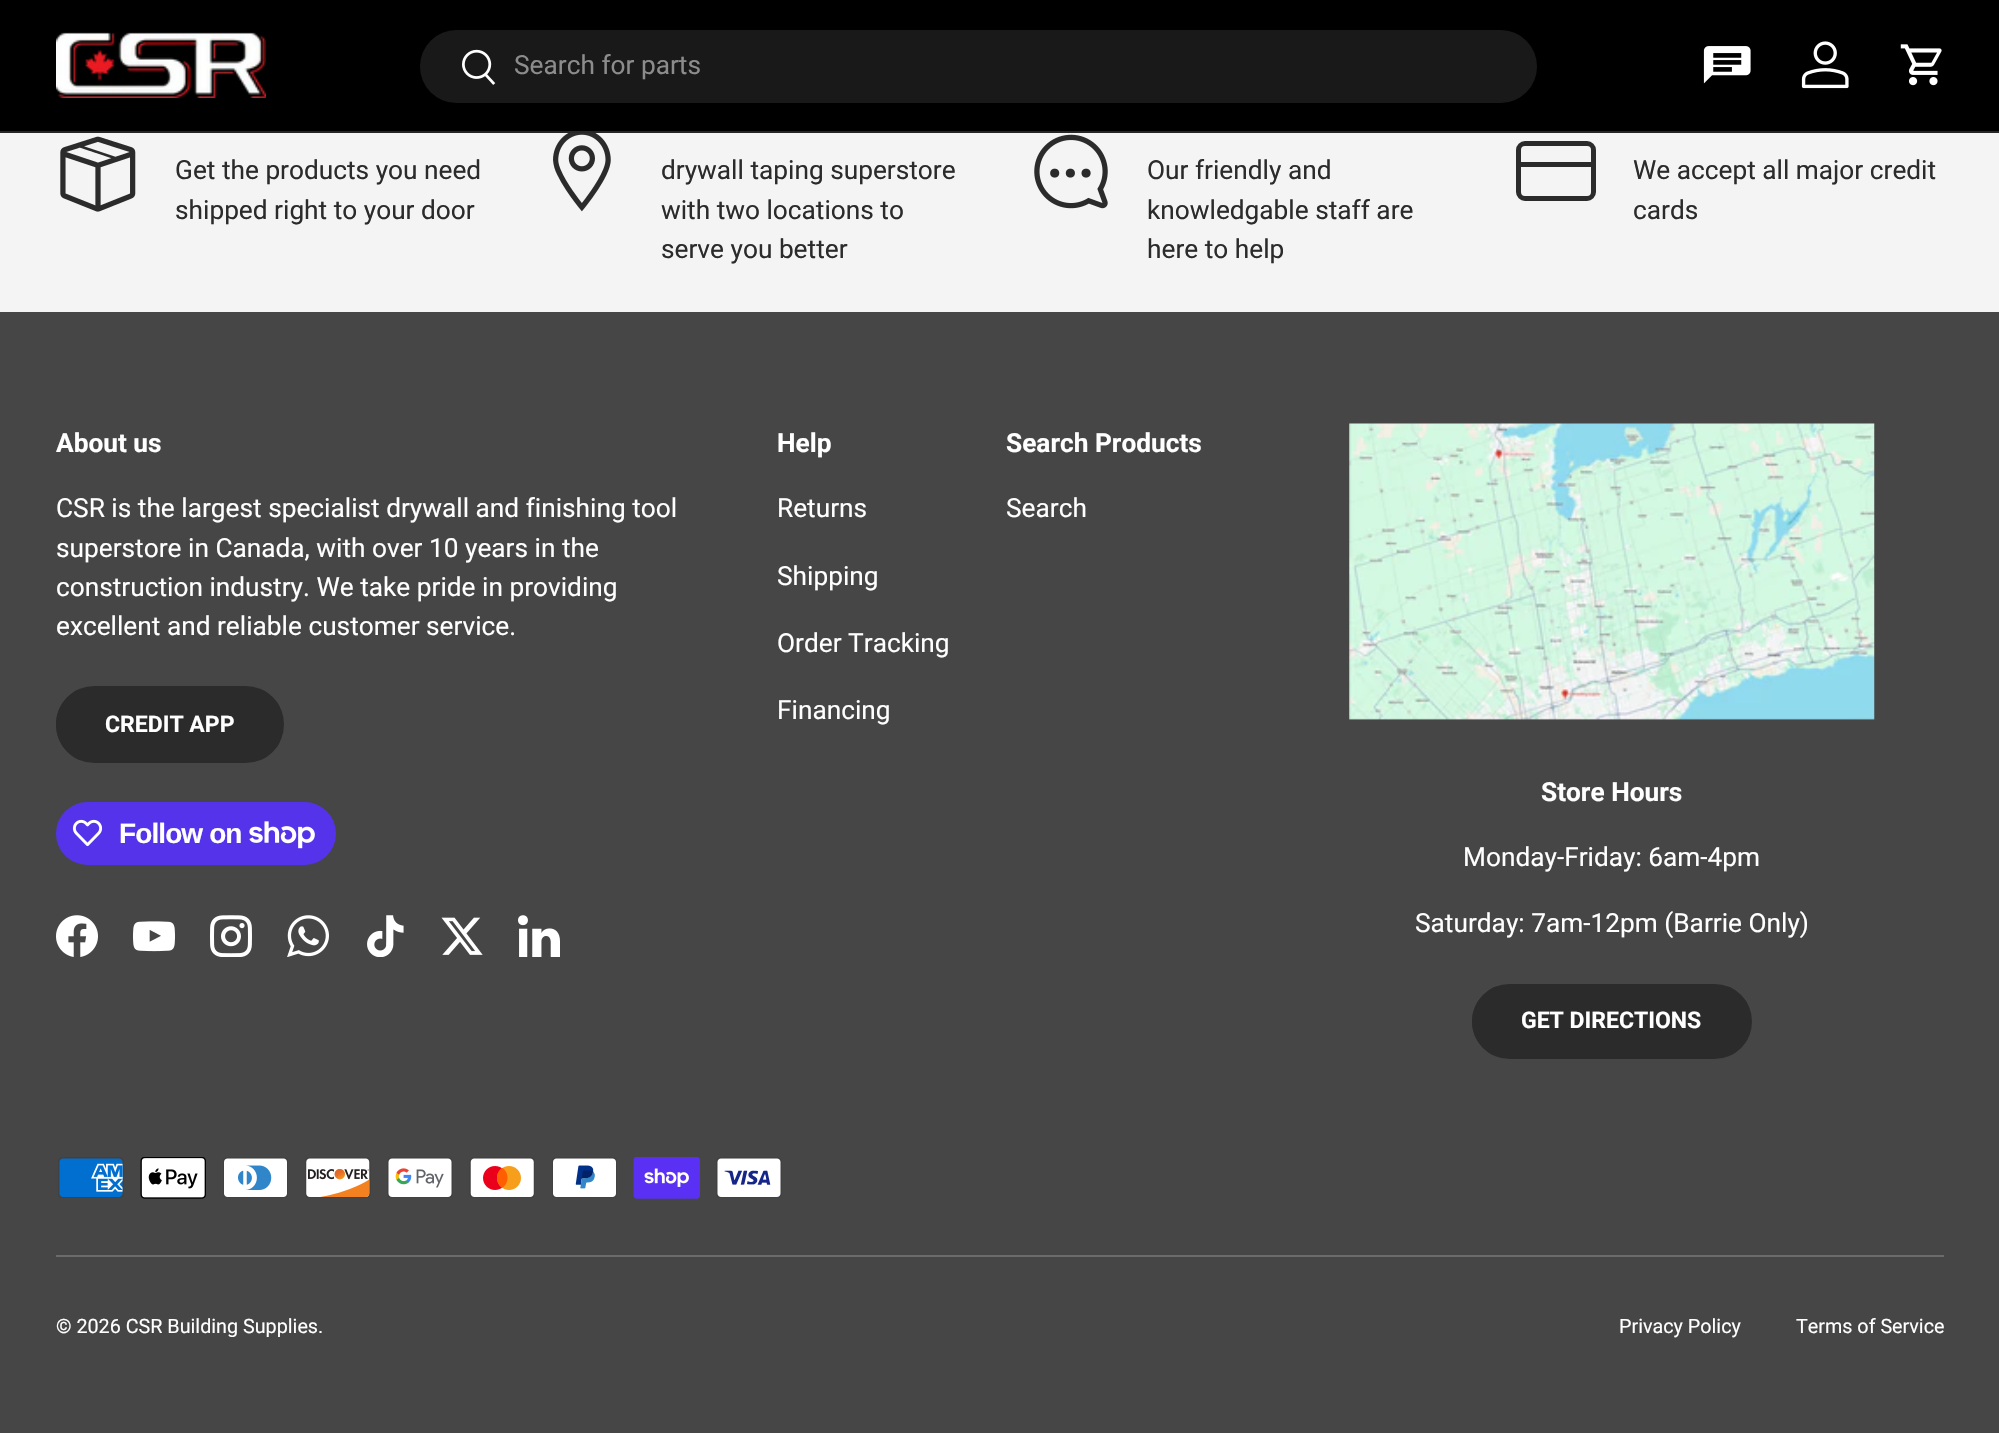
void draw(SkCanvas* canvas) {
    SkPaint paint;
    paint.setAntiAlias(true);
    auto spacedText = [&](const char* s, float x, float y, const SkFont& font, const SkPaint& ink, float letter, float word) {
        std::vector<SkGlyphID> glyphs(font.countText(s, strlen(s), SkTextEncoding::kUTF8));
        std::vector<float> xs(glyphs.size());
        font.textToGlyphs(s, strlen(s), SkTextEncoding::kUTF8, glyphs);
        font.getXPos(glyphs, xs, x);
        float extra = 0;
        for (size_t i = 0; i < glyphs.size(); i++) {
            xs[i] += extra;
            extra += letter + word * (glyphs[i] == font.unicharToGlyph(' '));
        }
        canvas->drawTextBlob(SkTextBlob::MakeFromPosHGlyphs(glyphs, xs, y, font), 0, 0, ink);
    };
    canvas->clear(0xFFF4F4F4);
    paint.setColor(0xFF000000);
    canvas->drawRect(SkRect::MakeXYWH(0, 0, 1999, 131), paint);
    paint.setColor(0xFF262626);
    canvas->drawRect(SkRect::MakeXYWH(0, 131, 1999, 2), paint);
    canvas->drawImageRect(SkImages::DeferredFromEncodedData(SkData::MakeFromFileName("img1.png")), SkRect::MakeXYWH(56, 32, 210, 66), SkSamplingOptions());
    paint.setColor(0xFF191919);
    canvas->drawRoundRect(SkRect::MakeXYWH(420, 30, 1117, 73), 36.5f, 36.5f, paint);
    canvas->drawImageRect(SkImages::DeferredFromEncodedData(SkData::MakeFromFileName("img2.png")), SkRect::MakeXYWH(462, 49, 34, 36), SkSamplingOptions());
    SkFont font1(fontMgr->matchFamilyStyle("Roboto", SkFontStyle::Normal()), 26.25f);
    font1.setSubpixel(true);
    paint.setColor(0xFF8C8C8C);
    canvas->drawString("Search for parts", 514, 74, font1, paint);
    canvas->drawImageRect(SkImages::DeferredFromEncodedData(SkData::MakeFromFileName("img3.png")), SkRect::MakeXYWH(1703, 46, 48, 38), SkSamplingOptions());
    canvas->drawImageRect(SkImages::DeferredFromEncodedData(SkData::MakeFromFileName("img4.png")), SkRect::MakeXYWH(1801, 41, 48, 48), SkSamplingOptions());
    canvas->drawImageRect(SkImages::DeferredFromEncodedData(SkData::MakeFromFileName("img5.png")), SkRect::MakeXYWH(1900, 44, 42, 42), SkSamplingOptions());
    canvas->drawImageRect(SkImages::DeferredFromEncodedData(SkData::MakeFromFileName("img6.png")), SkRect::MakeXYWH(60, 136, 76, 76), SkSamplingOptions());
    paint.setColor(0xFF2A2B2A);
    canvas->drawString("Get the products you need", 175, 179, font1, paint);
    canvas->drawString("shipped right to your door", 175, 219, font1, paint);
    canvas->drawImageRect(SkImages::DeferredFromEncodedData(SkData::MakeFromFileName("img7.png")), SkRect::MakeXYWH(553, 133, 58, 79), SkSamplingOptions());
    canvas->drawString("drywall taping superstore", 661, 179, font1, paint);
    canvas->drawString("with two locations to", 661, 219, font1, paint);
    canvas->drawString("serve you better", 661, 258, font1, paint);
    canvas->drawImageRect(SkImages::DeferredFromEncodedData(SkData::MakeFromFileName("img8.png")), SkRect::MakeXYWH(1034, 134, 74, 75), SkSamplingOptions());
    canvas->drawString("Our friendly and", 1147, 179, font1, paint);
    canvas->drawString("knowledgable staff are", 1147, 219, font1, paint);
    canvas->drawString("here to help", 1147, 258, font1, paint);
    paint.setStyle(SkPaint::kStroke_Style);
    paint.setStrokeWidth(5);
    canvas->drawRoundRect(SkRect::MakeXYWH(1518.5f, 143.5f, 75, 55), 6.5f, 6.5f, paint);
    paint.setStyle(SkPaint::kFill_Style);
    canvas->drawRect(SkRect::MakeXYWH(1519, 162, 75, 5), paint);
    canvas->drawString("We accept all major credit", 1633, 179, font1, paint);
    canvas->drawString("cards", 1633, 219, font1, paint);
    paint.setColor(0xFF464646);
    canvas->drawRect(SkRect::MakeXYWH(0, 312, 1999, 1121), paint);
    SkFont font2(fontMgr->matchFamilyStyle("Roboto", SkFontStyle::Bold()), 26.25f);
    font2.setSubpixel(true);
    paint.setColor(0xFFFFFFFF);
    canvas->drawString("About us", 56, 452, font2, paint);
    canvas->drawString("CSR is the largest specialist drywall and finishing tool", 56, 517, font1, paint);
    canvas->drawString("superstore in Canada, with over 10 years in the", 56, 557, font1, paint);
    canvas->drawString("construction industry. We take pride in providing", 56, 596, font1, paint);
    canvas->drawString("excellent and reliable customer service.", 56, 635, font1, paint);
    canvas->save();
    canvas->clipPath(SkPathBuilder().moveTo(94.5f, 686).lineTo(245.5f, 686).cubicTo(267, 686, 284, 703, 284, 724.5f).cubicTo(284, 746, 267, 763, 245.5f, 763).lineTo(94.5f, 763).cubicTo(73, 763, 56, 746, 56, 724.5f).cubicTo(56, 703, 73, 686, 94.5f, 686).close().detach(), true);
    {
        const SkColor colors[] = {0xFF525352, 0xFF2A2B2A, 0xFF2A2B2A};
        const float stops[] = {0.6f, 0.6f, 1};
        const SkPoint ends[] = {{-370, 645}, {269, 804}};
        paint.setShader(SkGradientShader::MakeLinear(ends, colors, stops, 3, SkTileMode::kClamp));
        paint.setAlpha(255);
    }
    canvas->drawRect(SkRect::MakeXYWH(56, 690, 224, 70), paint);
    canvas->restore();
    paint.setStyle(SkPaint::kStroke_Style);
    paint.setStrokeWidth(4);
    paint.setShader(nullptr);
    paint.setColor(0xFF2A2B2A);
    canvas->drawRoundRect(SkRect::MakeXYWH(58, 688, 224, 73), 36.5f, 36.5f, paint);
    SkFont font3(fontMgr->matchFamilyStyle("Roboto", SkFontStyle::Bold()), 23);
    font3.setSubpixel(true);
    paint.setStyle(SkPaint::kFill_Style);
    paint.setColor(0xFFFFFFFF);
    canvas->drawString("CREDIT APP", 105, 732, font3, paint);
    paint.setColor(0xFF5433EB);
    canvas->drawRoundRect(SkRect::MakeXYWH(56, 802, 280, 63), 31.5f, 31.5f, paint);
    canvas->drawImageRect(SkImages::DeferredFromEncodedData(SkData::MakeFromFileName("img9.png")), SkRect::MakeXYWH(72, 819, 31, 28), SkSamplingOptions());
    SkFont font4(fontMgr->matchFamilyStyle("Liberation Sans", SkFontStyle::Bold()), 28);
    font4.setSubpixel(true);
    paint.setColor(0xFFFFFFFF);
    spacedText("Follow on", 119, 843, font4, paint, -0.9f, 0);
    canvas->drawImageRect(SkImages::DeferredFromEncodedData(SkData::MakeFromFileName("img10.png")), SkRect::MakeXYWH(249, 821, 66, 28), SkSamplingOptions());
    canvas->drawImageRect(SkImages::DeferredFromEncodedData(SkData::MakeFromFileName("img11.png")), SkRect::MakeXYWH(56, 915, 42, 42), SkSamplingOptions());
    canvas->drawImageRect(SkImages::DeferredFromEncodedData(SkData::MakeFromFileName("img12.png")), SkRect::MakeXYWH(133, 921, 42, 31), SkSamplingOptions());
    canvas->drawImageRect(SkImages::DeferredFromEncodedData(SkData::MakeFromFileName("img13.png")), SkRect::MakeXYWH(210, 915, 42, 42), SkSamplingOptions());
    canvas->drawImageRect(SkImages::DeferredFromEncodedData(SkData::MakeFromFileName("img14.png")), SkRect::MakeXYWH(287, 915, 42, 42), SkSamplingOptions());
    canvas->drawImageRect(SkImages::DeferredFromEncodedData(SkData::MakeFromFileName("img15.png")), SkRect::MakeXYWH(367, 915, 37, 42), SkSamplingOptions());
    canvas->drawImageRect(SkImages::DeferredFromEncodedData(SkData::MakeFromFileName("img16.png")), SkRect::MakeXYWH(441, 917, 42, 38), SkSamplingOptions());
    canvas->drawImageRect(SkImages::DeferredFromEncodedData(SkData::MakeFromFileName("img17.png")), SkRect::MakeXYWH(518, 915, 42, 42), SkSamplingOptions());
    canvas->drawString("Help", 777, 452, font2, paint);
    canvas->drawString("Returns", 777, 517, font1, paint);
    canvas->drawString("Shipping", 777, 585, font1, paint);
    canvas->drawString("Order Tracking", 777, 652, font1, paint);
    canvas->drawString("Financing", 777, 719, font1, paint);
    canvas->drawString("Search Products", 1006, 452, font2, paint);
    canvas->drawString("Search", 1006, 517, font1, paint);
    canvas->drawImageRect(SkImages::DeferredFromEncodedData(SkData::MakeFromFileName("img18.png")), SkRect::MakeXYWH(1349, 423, 526, 297), SkSamplingOptions());
    canvas->drawString("Store Hours", 1541, 801, font2, paint);
    canvas->drawString("Monday-Friday: 6am-4pm", 1463, 866, font1, paint);
    canvas->drawString("Saturday: 7am-12pm (Barrie Only)", 1415, 932, font1, paint);
    canvas->save();
    canvas->clipPath(SkPathBuilder().moveTo(1509.5f, 984).lineTo(1714.5f, 984).cubicTo(1735, 984, 1752, 1001, 1752, 1021.5f).cubicTo(1752, 1042, 1735, 1059, 1714.5f, 1059).lineTo(1509.5f, 1059).cubicTo(1489, 1059, 1472, 1042, 1472, 1021.5f).cubicTo(1472, 1001, 1489, 984, 1509.5f, 984).close().detach(), true);
    {
        const SkColor colors[] = {0xFF525352, 0xFF2A2B2A, 0xFF2A2B2A};
        const float stops[] = {0.6f, 0.6f, 1};
        const SkPoint ends[] = {{945, 923}, {1732, 1119}};
        paint.setShader(SkGradientShader::MakeLinear(ends, colors, stops, 3, SkTileMode::kClamp));
        paint.setAlpha(255);
    }
    canvas->drawRect(SkRect::MakeXYWH(1472, 987, 276, 68), paint);
    canvas->restore();
    paint.setStyle(SkPaint::kStroke_Style);
    paint.setShader(nullptr);
    paint.setColor(0xFF2A2B2A);
    canvas->drawRoundRect(SkRect::MakeXYWH(1474, 986, 276, 71), 35.5f, 35.5f, paint);
    paint.setStyle(SkPaint::kFill_Style);
    paint.setColor(0xFFFFFFFF);
    canvas->drawString("GET DIRECTIONS", 1521, 1028, font3, paint);
    canvas->drawImageRect(SkImages::DeferredFromEncodedData(SkData::MakeFromFileName("img19.png")), SkRect::MakeXYWH(58, 1157, 66, 41), SkSamplingOptions());
    canvas->drawImageRect(SkImages::DeferredFromEncodedData(SkData::MakeFromFileName("img20.png")), SkRect::MakeXYWH(140, 1157, 66, 42), SkSamplingOptions());
    canvas->drawImageRect(SkImages::DeferredFromEncodedData(SkData::MakeFromFileName("img21.png")), SkRect::MakeXYWH(223, 1157, 65, 41), SkSamplingOptions());
    canvas->drawImageRect(SkImages::DeferredFromEncodedData(SkData::MakeFromFileName("img22.png")), SkRect::MakeXYWH(305, 1157, 66, 41), SkSamplingOptions());
    canvas->drawImageRect(SkImages::DeferredFromEncodedData(SkData::MakeFromFileName("img23.png")), SkRect::MakeXYWH(387, 1157, 66, 41), SkSamplingOptions());
    canvas->drawImageRect(SkImages::DeferredFromEncodedData(SkData::MakeFromFileName("img24.png")), SkRect::MakeXYWH(469, 1157, 66, 41), SkSamplingOptions());
    canvas->drawImageRect(SkImages::DeferredFromEncodedData(SkData::MakeFromFileName("img25.png")), SkRect::MakeXYWH(552, 1157, 65, 41), SkSamplingOptions());
    canvas->drawImageRect(SkImages::DeferredFromEncodedData(SkData::MakeFromFileName("img26.png")), SkRect::MakeXYWH(633, 1157, 67, 42), SkSamplingOptions());
    canvas->drawImageRect(SkImages::DeferredFromEncodedData(SkData::MakeFromFileName("img27.png")), SkRect::MakeXYWH(716, 1157, 66, 41), SkSamplingOptions());
    paint.setColor(0xFF6B6B6B);
    canvas->drawRect(SkRect::MakeXYWH(56, 1255, 1888, 2), paint);
    SkFont font5(fontMgr->matchFamilyStyle("Roboto", SkFontStyle::Normal()), 19.75f);
    font5.setSubpixel(true);
    paint.setColor(0xFFFFFFFF);
    canvas->drawString("© 2026 CSR Building Supplies.", 56, 1333, font5, paint);
    canvas->drawString("Privacy Policy", 1619, 1333, font5, paint);
    canvas->drawString("Terms of Service", 1796, 1333, font5, paint);
}
